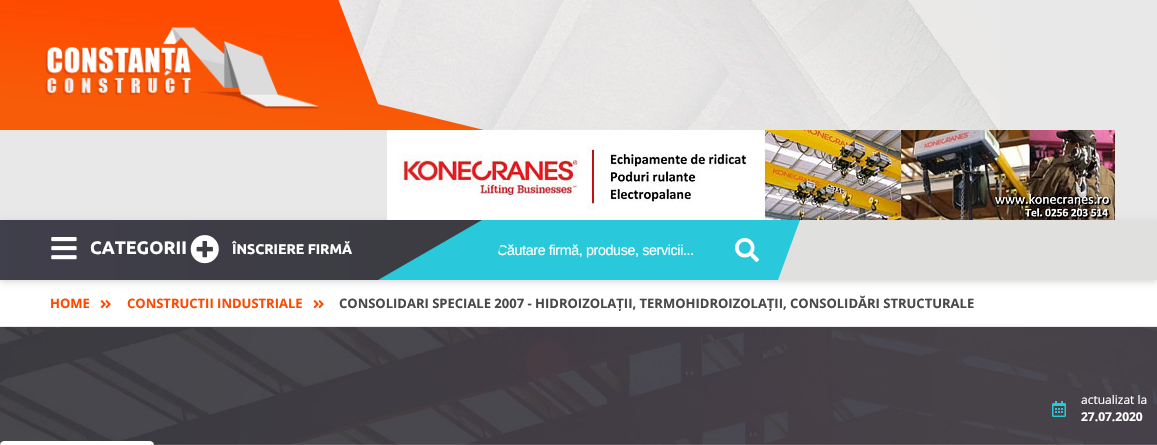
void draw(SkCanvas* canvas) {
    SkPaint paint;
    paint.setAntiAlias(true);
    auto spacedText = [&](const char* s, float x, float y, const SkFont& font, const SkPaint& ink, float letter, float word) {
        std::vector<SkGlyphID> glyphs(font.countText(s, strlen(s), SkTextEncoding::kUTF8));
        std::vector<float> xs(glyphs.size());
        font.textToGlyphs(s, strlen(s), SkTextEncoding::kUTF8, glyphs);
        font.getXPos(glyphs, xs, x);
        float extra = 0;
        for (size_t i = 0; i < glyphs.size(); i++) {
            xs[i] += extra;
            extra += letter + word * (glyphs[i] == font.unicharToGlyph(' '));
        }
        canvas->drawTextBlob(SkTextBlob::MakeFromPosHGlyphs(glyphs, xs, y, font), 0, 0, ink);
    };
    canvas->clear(0xFFFFFFFF);
    paint.setColor(0xFFE8E8E8);
    canvas->drawRect(SkRect::MakeXYWH(0, 0, 1157, 220), paint);
    canvas->drawImageRect(SkImages::DeferredFromEncodedData(SkData::MakeFromFileName("img1.png")), SkRect::MakeXYWH(338, 0, 662, 130), SkSamplingOptions());
    canvas->drawImageRect(SkImages::DeferredFromEncodedData(SkData::MakeFromFileName("img2.png")), SkRect::MakeXYWH(0, 0, 484, 130), SkSamplingOptions());
    canvas->drawImageRect(SkImages::DeferredFromEncodedData(SkData::MakeFromFileName("img3.png")), SkRect::MakeXYWH(45, 27, 275, 82), SkSamplingOptions());
    paint.setColor(0x26000000);
    paint.setMaskFilter(SkMaskFilter::MakeBlur(kNormal_SkBlurStyle, 3));
    canvas->drawRect(SkRect::MakeXYWH(0, 222, 1157, 60), paint);
    paint.setMaskFilter(nullptr);
    canvas->drawImageRect(SkImages::DeferredFromEncodedData(SkData::MakeFromFileName("img4.png")), SkRect::MakeXYWH(387, 130, 728, 90), SkSamplingOptions());
    paint.setColor(0xFFE0E0DE);
    canvas->drawRect(SkRect::MakeXYWH(778, 220, 379, 60), paint);
    paint.setColor(0xFF29C8DB);
    canvas->drawPath(SkPathBuilder().moveTo(390, 220).lineTo(800, 220).lineTo(778, 280).lineTo(368, 280).close().detach(), paint);
    {
        const SkColor colors[] = {0xFF403F4C, 0xFF3C3C42};
        const float stops[] = {0, 1};
        const SkPoint ends[] = {{-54, 250}, {430, 250}};
        paint.setShader(SkGradientShader::MakeLinear(ends, colors, stops, 2, SkTileMode::kClamp));
        paint.setAlpha(255);
    }
    canvas->drawPath(SkPathBuilder().moveTo(-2, 220).lineTo(482, 220).lineTo(378, 280).lineTo(-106, 280).close().detach(), paint);
    canvas->drawImageRect(SkImages::DeferredFromEncodedData(SkData::MakeFromFileName("img5.png")), SkRect::MakeXYWH(51, 237, 26, 23), SkSamplingOptions());
    SkFont font1(fontMgr->matchFamilyStyle("Ubuntu", SkFontStyle::Bold()), 18);
    font1.setSubpixel(true);
    paint.setShader(nullptr);
    paint.setColor(0xFFFFFFFF);
    canvas->drawString("CATEGORII", 90, 254, font1, paint);
    canvas->drawImageRect(SkImages::DeferredFromEncodedData(SkData::MakeFromFileName("img6.png")), SkRect::MakeXYWH(190, 235, 29, 29), SkSamplingOptions());
    SkFont font2(fontMgr->matchFamilyStyle("Ubuntu", SkFontStyle::Bold()), 14);
    font2.setSubpixel(true);
    canvas->drawString("ÎNSCRIERE FIRMĂ", 232, 254, font2, paint);
    canvas->save();
    canvas->clipPath(SkPathBuilder().moveTo(501.5f, 242.5f).lineTo(788.5f, 242.5f).lineTo(783.5f, 257.5f).lineTo(496.5f, 257.5f).close().detach(), true);
    SkFont font3(fontMgr->matchFamilyStyle("Liberation Sans", SkFontStyle::Normal()), 14.25f);
    font3.setSubpixel(true);
    spacedText("Căutare firmă, produse, servicii...", 497, 255, font3, paint, -0.35f, 0);
    canvas->restore();
    canvas->drawImageRect(SkImages::DeferredFromEncodedData(SkData::MakeFromFileName("img7.png")), SkRect::MakeXYWH(735, 238, 24, 24), SkSamplingOptions());
    paint.setColor(0xFFEAEAEA);
    canvas->drawRect(SkRect::MakeXYWH(0, 326, 1157, 1), paint);
    SkFont font4(fontMgr->matchFamilyStyle("Open Sans", SkFontStyle::Bold()), 13);
    font4.setSubpixel(true);
    paint.setColor(0xFFFE4A01);
    canvas->drawString("HOME", 50, 308, font4, paint);
    canvas->drawImageRect(SkImages::DeferredFromEncodedData(SkData::MakeFromFileName("img8.png")), SkRect::MakeXYWH(100, 300, 11, 9), SkSamplingOptions());
    canvas->drawString("CONSTRUCTII INDUSTRIALE", 127, 308, font4, paint);
    canvas->drawImageRect(SkImages::DeferredFromEncodedData(SkData::MakeFromFileName("img8.png")), SkRect::MakeXYWH(313, 300, 11, 9), SkSamplingOptions());
    paint.setColor(0xFF4C4847);
    canvas->drawString("CONSOLIDARI SPECIALE 2007 - HIDROIZOLAȚII, TERMOHIDROIZOLAȚII, CONSOLIDĂRI STRUCTURALE", 339, 308, font4, paint);
    canvas->drawImageRect(SkImages::DeferredFromEncodedData(SkData::MakeFromFileName("img9.png")), SkRect::MakeXYWH(0, 327, 1157, 118), SkSamplingOptions());
    canvas->drawImageRect(SkImages::DeferredFromEncodedData(SkData::MakeFromFileName("img10.png")), SkRect::MakeXYWH(1052, 401, 14, 16), SkSamplingOptions());
    SkFont font5(fontMgr->matchFamilyStyle("Open Sans", SkFontStyle::Normal()), 12);
    font5.setSubpixel(true);
    paint.setColor(0xFFFFFFFF);
    canvas->drawString("actualizat la", 1081, 404, font5, paint);
    SkFont font6(fontMgr->matchFamilyStyle("Open Sans", SkFontStyle::Bold()), 12);
    font6.setSubpixel(true);
    canvas->drawString("27.07.2020", 1081, 421, font6, paint);
    canvas->drawRoundRect(SkRect::MakeXYWH(0, 441, 154, 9), 5, 5, paint);
    paint.setColor(0xFFEEEEEE);
    canvas->drawRect(SkRect::MakeXYWH(151, 444, 1, 1), paint);
}
